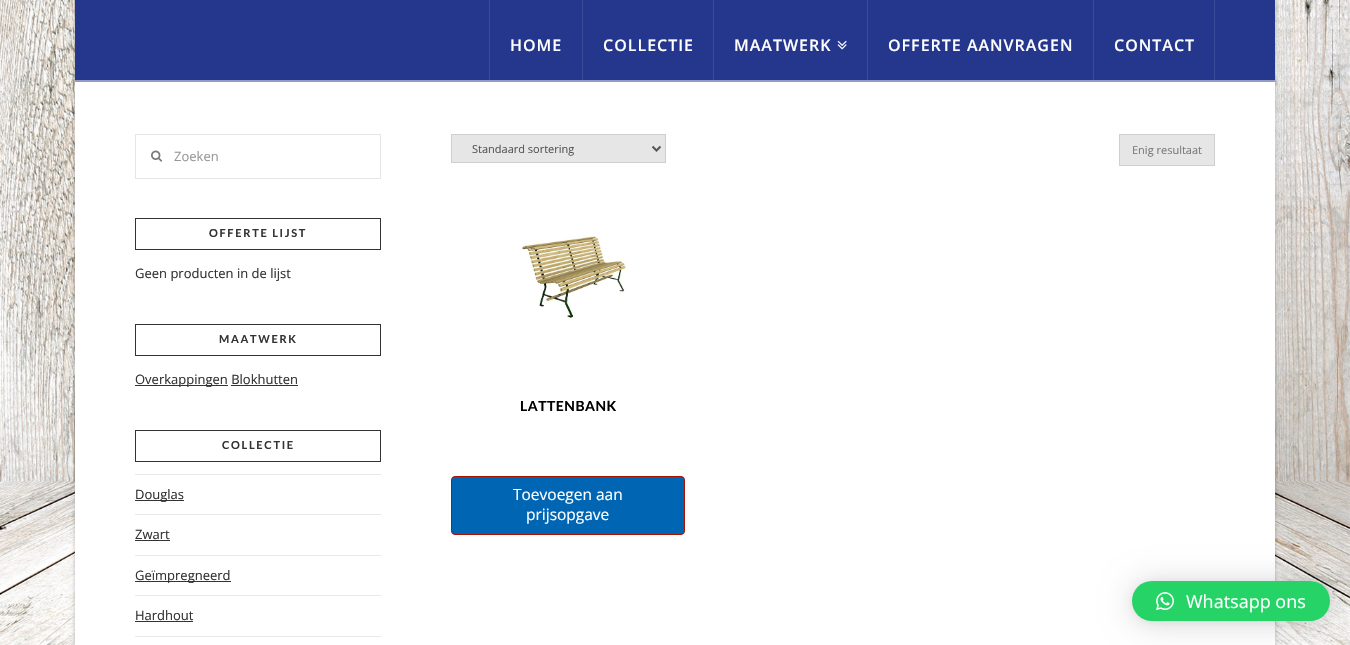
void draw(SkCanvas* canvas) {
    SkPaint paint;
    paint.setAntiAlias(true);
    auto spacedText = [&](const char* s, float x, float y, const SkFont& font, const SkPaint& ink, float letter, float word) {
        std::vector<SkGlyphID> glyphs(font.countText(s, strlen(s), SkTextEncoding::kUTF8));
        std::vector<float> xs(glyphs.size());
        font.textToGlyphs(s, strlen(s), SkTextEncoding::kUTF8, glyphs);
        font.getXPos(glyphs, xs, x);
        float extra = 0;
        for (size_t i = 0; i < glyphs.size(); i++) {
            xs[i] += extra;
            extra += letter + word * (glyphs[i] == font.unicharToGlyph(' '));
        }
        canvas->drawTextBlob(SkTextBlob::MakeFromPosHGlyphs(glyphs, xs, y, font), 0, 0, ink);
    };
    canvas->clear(0xFFFFFFFF);
    canvas->drawImageRect(SkImages::DeferredFromEncodedData(SkData::MakeFromFileName("img1.png")), SkRect::MakeXYWH(0, 0, 1350, 645), SkSamplingOptions());
    paint.setColor(0x40000000);
    paint.setMaskFilter(SkMaskFilter::MakeBlur(kNormal_SkBlurStyle, 2));
    canvas->drawRect(SkRect::MakeXYWH(75, 1, 1200, 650), paint);
    paint.setMaskFilter(nullptr);
    paint.setColor(0xFFFFFFFF);
    canvas->drawRect(SkRect::MakeXYWH(75, 82, 1200, 563), paint);
    paint.setColor(0xFF25378D);
    canvas->drawRect(SkRect::MakeXYWH(75, 0, 1200, 80), paint);
    paint.setColor(0xFF929BC6);
    canvas->drawRect(SkRect::MakeXYWH(75, 80, 1200, 2), paint);
    paint.setColor(0xFF3B4B98);
    canvas->drawRect(SkRect::MakeXYWH(582, 0, 1, 80), paint);
    canvas->drawRect(SkRect::MakeXYWH(489, 0, 1, 80), paint);
    SkFont font1(fontMgr->matchFamilyStyle("Open Sans", SkFontStyle(600, SkFontStyle::kNormal_Width, SkFontStyle::kUpright_Slant)), 16);
    font1.setSubpixel(true);
    paint.setColor(0xFFFFFFFF);
    spacedText("HOME", 510, 51, font1, paint, 1, 0);
    paint.setColor(0xFF3B4B98);
    canvas->drawRect(SkRect::MakeXYWH(713, 0, 1, 80), paint);
    paint.setColor(0xFFFFFFFF);
    spacedText("COLLECTIE", 603, 51, font1, paint, 1, 0);
    paint.setColor(0xFF3B4B98);
    canvas->drawRect(SkRect::MakeXYWH(867, 0, 1, 80), paint);
    paint.setColor(0xFFFFFFFF);
    spacedText("MAATWERK", 734, 51, font1, paint, 1, 0);
    canvas->drawImageRect(SkImages::DeferredFromEncodedData(SkData::MakeFromFileName("img2.png")), SkRect::MakeXYWH(837, 40, 10, 10), SkSamplingOptions());
    paint.setColor(0xFF3B4B98);
    canvas->drawRect(SkRect::MakeXYWH(1093, 0, 1, 80), paint);
    paint.setColor(0xFFFFFFFF);
    spacedText("OFFERTE AANVRAGEN", 888, 51, font1, paint, 1, 0);
    paint.setColor(0xFF3B4B98);
    canvas->drawRect(SkRect::MakeXYWH(1214, 0, 1, 80), paint);
    paint.setColor(0xFFFFFFFF);
    spacedText("CONTACT", 1114, 51, font1, paint, 1, 0);
    paint.setStyle(SkPaint::kStroke_Style);
    paint.setStrokeWidth(1);
    paint.setColor(0xFFE6E6E6);
    canvas->drawRect(SkRect::MakeXYWH(135.5f, 134.5f, 245, 44), paint);
    canvas->drawImageRect(SkImages::DeferredFromEncodedData(SkData::MakeFromFileName("img3.png")), SkRect::MakeXYWH(151, 150, 12, 12), SkSamplingOptions());
    SkFont font2(fontMgr->matchFamilyStyle("Open Sans", SkFontStyle::Normal()), 13);
    font2.setSubpixel(true);
    paint.setStyle(SkPaint::kFill_Style);
    paint.setColor(0xFF999999);
    canvas->drawString("Zoeken", 174, 161, font2, paint);
    paint.setStyle(SkPaint::kStroke_Style);
    paint.setColor(0xFF333333);
    canvas->drawRect(SkRect::MakeXYWH(135.5f, 218.5f, 245, 31), paint);
    SkFont font3(fontMgr->matchFamilyStyle("Lato", SkFontStyle::Bold()), 11);
    font3.setSubpixel(true);
    paint.setStyle(SkPaint::kFill_Style);
    spacedText("OFFERTE LIJST", 209, 237, font3, paint, 1.7f, 0);
    canvas->drawString("Geen producten in de lijst", 135, 278, font2, paint);
    paint.setStyle(SkPaint::kStroke_Style);
    canvas->drawRect(SkRect::MakeXYWH(135.5f, 324.5f, 245, 31), paint);
    paint.setStyle(SkPaint::kFill_Style);
    spacedText("MAATWERK", 219, 343, font3, paint, 1.7f, 0);
    canvas->drawRect(SkRect::MakeXYWH(135, 385, 93, 1), paint);
    canvas->drawString("Overkappingen Blokhutten", 135, 384, font2, paint);
    canvas->drawRect(SkRect::MakeXYWH(231, 385, 67, 1), paint);
    paint.setStyle(SkPaint::kStroke_Style);
    canvas->drawRect(SkRect::MakeXYWH(135.5f, 430.5f, 245, 31), paint);
    paint.setStyle(SkPaint::kFill_Style);
    spacedText("COLLECTIE", 222, 449, font3, paint, 1.7f, 0);
    paint.setColor(0xFFE9E9E9);
    canvas->drawRect(SkRect::MakeXYWH(135, 474, 246, 1), paint);
    paint.setColor(0xFF333333);
    canvas->drawRect(SkRect::MakeXYWH(135, 500, 49, 1), paint);
    canvas->drawString("Douglas", 135, 499, font2, paint);
    paint.setColor(0xFFE9E9E9);
    canvas->drawRect(SkRect::MakeXYWH(135, 514, 246, 1), paint);
    paint.setColor(0xFF333333);
    canvas->drawString("Zwart", 135, 539, font2, paint);
    canvas->drawRect(SkRect::MakeXYWH(135, 540, 35, 1), paint);
    paint.setColor(0xFFE9E9E9);
    canvas->drawRect(SkRect::MakeXYWH(135, 555, 246, 1), paint);
    paint.setColor(0xFF333333);
    canvas->drawRect(SkRect::MakeXYWH(135, 581, 96, 1), paint);
    canvas->drawString("Geïmpregneerd", 135, 580, font2, paint);
    paint.setColor(0xFFE9E9E9);
    canvas->drawRect(SkRect::MakeXYWH(135, 595, 246, 1), paint);
    paint.setColor(0xFF333333);
    canvas->drawString("Hardhout", 135, 620, font2, paint);
    canvas->drawRect(SkRect::MakeXYWH(135, 621, 58, 1), paint);
    paint.setColor(0xFFE9E9E9);
    canvas->drawRect(SkRect::MakeXYWH(135, 636, 246, 1), paint);
    paint.setColor(0xFFE6E6E6);
    canvas->drawRect(SkRect::MakeXYWH(451.5f, 134.5f, 214, 28), paint);
    paint.setStyle(SkPaint::kStroke_Style);
    paint.setColor(0xFFCFCFCF);
    canvas->drawRect(SkRect::MakeXYWH(451.5f, 134.5f, 214, 28), paint);
    paint.setStrokeWidth(2);
    paint.setColor(0xFF555555);
    canvas->drawPath(SkPathBuilder().moveTo(652.5f, 146.5f).lineTo(656.5f, 150.5f).lineTo(660.5f, 146.5f).detach(), paint);
    SkFont font4(fontMgr->matchFamilyStyle("Open Sans", SkFontStyle::Normal()), 11);
    font4.setSubpixel(true);
    paint.setStyle(SkPaint::kFill_Style);
    canvas->drawString("Standaard sortering", 472, 153, font4, paint);
    paint.setColor(0xFFE6E6E6);
    canvas->drawRect(SkRect::MakeXYWH(1119.5f, 134.5f, 95, 31), paint);
    paint.setStyle(SkPaint::kStroke_Style);
    paint.setStrokeWidth(1);
    paint.setColor(0xFFCFCFCF);
    canvas->drawRect(SkRect::MakeXYWH(1119.5f, 134.5f, 95, 31), paint);
    paint.setStyle(SkPaint::kFill_Style);
    paint.setColor(0xFF7A7A7A);
    canvas->drawString("Enig resultaat", 1132, 154, font4, paint);
    canvas->drawImageRect(SkImages::DeferredFromEncodedData(SkData::MakeFromFileName("img4.png")), SkRect::MakeXYWH(521, 236, 106, 82), SkSamplingOptions());
    SkFont font5(fontMgr->matchFamilyStyle("Lato", SkFontStyle::Bold()), 14);
    font5.setSubpixel(true);
    paint.setColor(0xFF000000);
    spacedText("LATTENBANK", 520, 411, font5, paint, 0.5f, 0);
    paint.setColor(0xFF0066B4);
    canvas->drawRoundRect(SkRect::MakeXYWH(451.5f, 476.5f, 233, 58), 3.5f, 3.5f, paint);
    paint.setStyle(SkPaint::kStroke_Style);
    paint.setColor(0xFFAC1100);
    canvas->drawRoundRect(SkRect::MakeXYWH(451.5f, 476.5f, 233, 58), 3.5f, 3.5f, paint);
    SkFont font6(fontMgr->matchFamilyStyle("Open Sans", SkFontStyle::Normal()), 15.5f);
    font6.setSubpixel(true);
    paint.setStyle(SkPaint::kFill_Style);
    paint.setColor(0xFFFFFFFF);
    canvas->drawString("Toevoegen aan", 513, 500, font6, paint);
    canvas->drawString("prijsopgave", 526, 520, font6, paint);
    paint.setColor(0x29000000);
    paint.setMaskFilter(SkMaskFilter::MakeBlur(kNormal_SkBlurStyle, 16));
    canvas->drawRoundRect(SkRect::MakeXYWH(1132, 583, 198, 40), 20, 20, paint);
    paint.setMaskFilter(nullptr);
    paint.setColor(0x0F000000);
    paint.setMaskFilter(SkMaskFilter::MakeBlur(kNormal_SkBlurStyle, 3));
    canvas->drawRoundRect(SkRect::MakeXYWH(1132, 582, 198, 40), 20, 20, paint);
    paint.setMaskFilter(nullptr);
    paint.setColor(0xFF25D366);
    canvas->drawRoundRect(SkRect::MakeXYWH(1132, 581, 198, 40), 20, 20, paint);
    canvas->drawImageRect(SkImages::DeferredFromEncodedData(SkData::MakeFromFileName("img5.png")), SkRect::MakeXYWH(1156, 592, 18, 19), SkSamplingOptions());
    SkFont font7(fontMgr->matchFamilyStyle("Open Sans", SkFontStyle::Normal()), 18);
    font7.setSubpixel(true);
    paint.setColor(0xFFFFFFFF);
    canvas->drawString("Whatsapp ons", 1186, 608, font7, paint);
}
